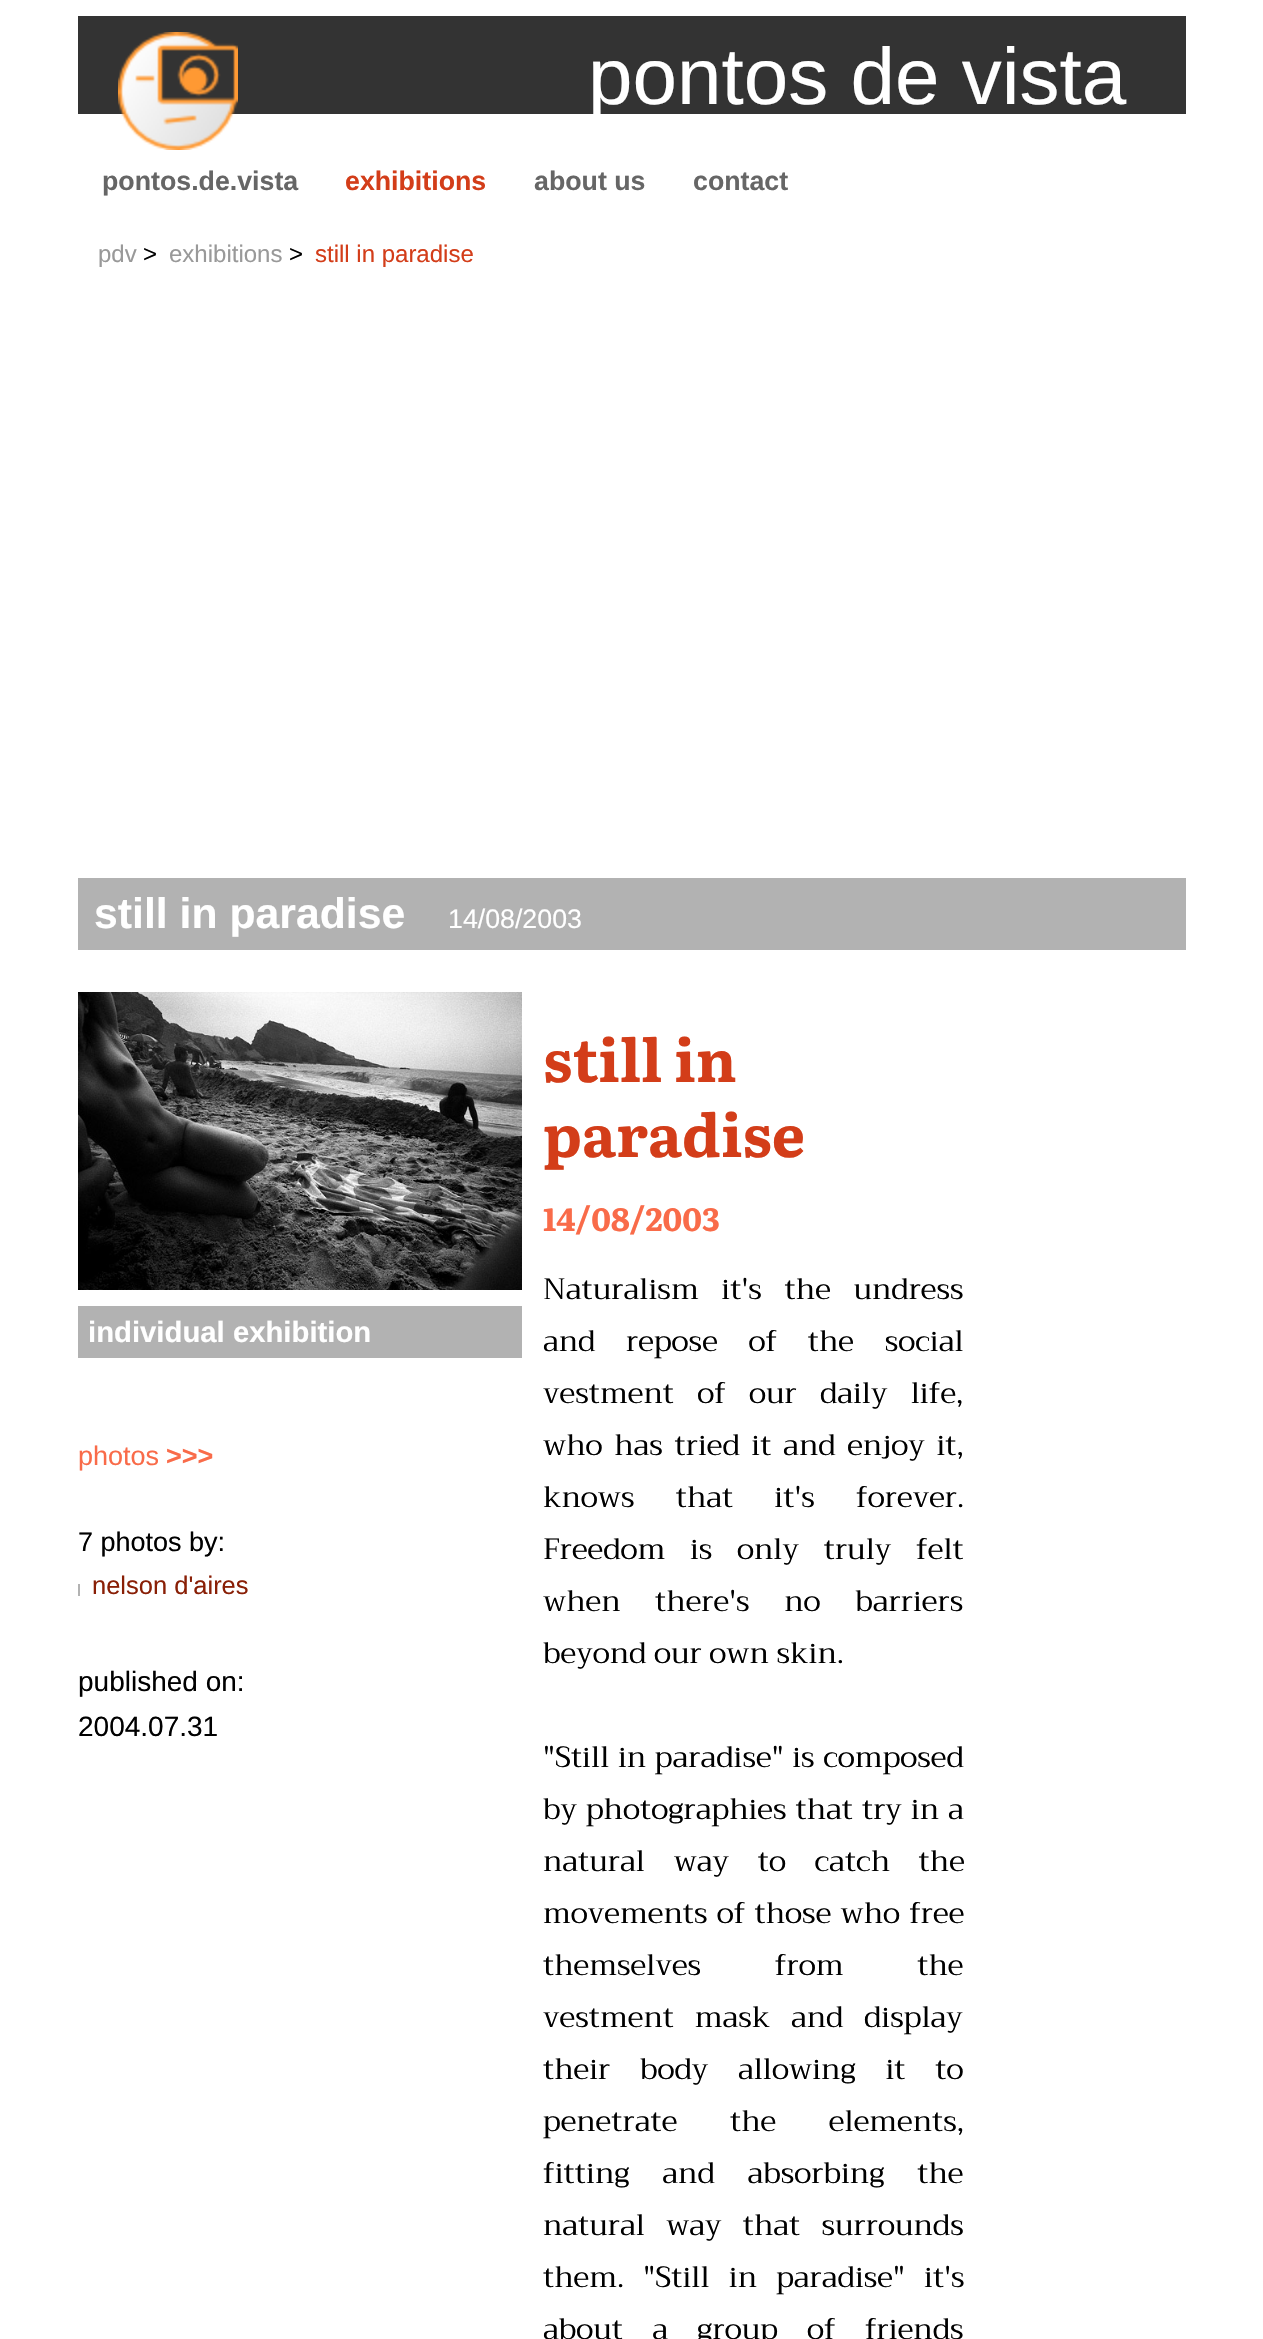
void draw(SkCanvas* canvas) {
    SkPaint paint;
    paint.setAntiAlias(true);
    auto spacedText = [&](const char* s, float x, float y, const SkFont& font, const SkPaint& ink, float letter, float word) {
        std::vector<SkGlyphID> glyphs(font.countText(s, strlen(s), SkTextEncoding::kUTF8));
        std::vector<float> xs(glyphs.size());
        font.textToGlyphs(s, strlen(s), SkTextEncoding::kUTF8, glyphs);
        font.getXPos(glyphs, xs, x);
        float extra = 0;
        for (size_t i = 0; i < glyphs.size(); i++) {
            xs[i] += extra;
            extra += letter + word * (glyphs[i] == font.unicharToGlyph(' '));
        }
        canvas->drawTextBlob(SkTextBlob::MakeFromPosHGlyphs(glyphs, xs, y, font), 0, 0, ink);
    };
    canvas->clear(0xFFFFFFFF);
    paint.setColor(0xFF333333);
    canvas->drawRect(SkRect::MakeXYWH(78, 16, 1108, 98), paint);
    canvas->drawImageRect(SkImages::DeferredFromEncodedData(SkData::MakeFromFileName("img1.png")), SkRect::MakeXYWH(118, 32, 120, 118), SkSamplingOptions());
    SkFont font1(fontMgr->matchFamilyStyle("Liberation Sans", SkFontStyle::Normal()), 80);
    font1.setSubpixel(true);
    paint.setColor(0xFFFFFFFF);
    canvas->drawString("pontos de vista", 588, 104, font1, paint);
    SkFont font2(fontMgr->matchFamilyStyle("Liberation Sans", SkFontStyle::Bold()), 26.75f);
    font2.setSubpixel(true);
    paint.setColor(0xFF666666);
    canvas->drawString("pontos.de.vista", 102, 190, font2, paint);
    paint.setColor(0xFFD33D19);
    canvas->drawString("exhibitions", 345, 190, font2, paint);
    paint.setColor(0xFF666666);
    canvas->drawString("about us", 534, 190, font2, paint);
    canvas->drawString("contact", 693, 190, font2, paint);
    SkFont font3(fontMgr->matchFamilyStyle("Liberation Sans", SkFontStyle::Normal()), 24);
    font3.setSubpixel(true);
    paint.setColor(0xFF999999);
    canvas->drawString("pdv", 98, 262, font3, paint);
    paint.setColor(0xFF000000);
    canvas->drawString(">", 143, 262, font3, paint);
    paint.setColor(0xFF999999);
    canvas->drawString("exhibitions", 169, 262, font3, paint);
    paint.setColor(0xFF000000);
    canvas->drawString(">", 289, 262, font3, paint);
    paint.setColor(0xFFD33D19);
    canvas->drawString("still in paradise", 315, 262, font3, paint);
    paint.setColor(0xFFB2B2B2);
    canvas->drawRect(SkRect::MakeXYWH(78, 878, 1108, 72), paint);
    SkFont font4(fontMgr->matchFamilyStyle("Liberation Sans", SkFontStyle::Bold()), 42.75f);
    font4.setSubpixel(true);
    paint.setColor(0xFFFFFFFF);
    canvas->drawString("still in paradise", 94, 928, font4, paint);
    SkFont font5(fontMgr->matchFamilyStyle("Liberation Sans", SkFontStyle::Normal()), 26.75f);
    font5.setSubpixel(true);
    canvas->drawString("14/08/2003", 448, 928, font5, paint);
    canvas->drawImageRect(SkImages::DeferredFromEncodedData(SkData::MakeFromFileName("img2.png")), SkRect::MakeXYWH(78, 992, 444, 298), SkSamplingOptions());
    paint.setColor(0xFFB2B2B2);
    canvas->drawRect(SkRect::MakeXYWH(78, 1306, 444, 52), paint);
    SkFont font6(fontMgr->matchFamilyStyle("Liberation Sans", SkFontStyle::Bold()), 29.3f);
    font6.setSubpixel(true);
    paint.setColor(0xFFFFFFFF);
    canvas->drawString("individual exhibition", 88, 1342, font6, paint);
    SkFont font7(fontMgr->matchFamilyStyle("Liberation Sans", SkFontStyle::Normal()), 27);
    font7.setSubpixel(true);
    paint.setColor(0xFFF96B49);
    canvas->drawString("photos", 78, 1465, font7, paint);
    SkFont font8(fontMgr->matchFamilyStyle("Liberation Sans", SkFontStyle::Bold()), 27);
    font8.setSubpixel(true);
    canvas->drawString(">>>", 166, 1465, font8, paint);
    paint.setColor(0xFF000000);
    canvas->drawString("7 photos by:", 78, 1551, font7, paint);
    paint.setColor(0xFFB2B2B2);
    canvas->drawRect(SkRect::MakeXYWH(78, 1584, 2, 12), paint);
    SkFont font9(fontMgr->matchFamilyStyle("Liberation Sans", SkFontStyle::Normal()), 25.5f);
    font9.setSubpixel(true);
    paint.setColor(0xFF891F06);
    canvas->drawString("nelson d'aires", 92, 1594, font9, paint);
    SkFont font10(fontMgr->matchFamilyStyle("Liberation Sans", SkFontStyle::Normal()), 28);
    font10.setSubpixel(true);
    paint.setColor(0xFF000000);
    canvas->drawString("published on:", 78, 1691, font10, paint);
    canvas->drawString("2004.07.31", 78, 1736, font10, paint);
    SkFont font11(fontMgr->matchFamilyStyle("Literata", SkFontStyle::Bold()), 59);
    font11.setSubpixel(true);
    paint.setColor(0xFFD33D19);
    canvas->drawString("still in", 543, 1082, font11, paint);
    canvas->drawString("paradise", 543, 1157, font11, paint);
    SkFont font12(fontMgr->matchFamilyStyle("Literata", SkFontStyle::Bold()), 32);
    font12.setSubpixel(true);
    paint.setColor(0xFFF96B49);
    canvas->drawString("14/08/2003", 543, 1231, font12, paint);
    SkFont font13(fontMgr->matchFamilyStyle("Trirong", SkFontStyle::Normal()), 29.3f);
    font13.setSubpixel(true);
    paint.setColor(0xFF000000);
    spacedText("Naturalism it's the undress", 543, 1299, font13, paint, 0, 15);
    spacedText("and repose of the social", 543, 1351, font13, paint, 0, 23);
    spacedText("vestment of our daily life,", 543, 1403, font13, paint, 0, 15.5f);
    spacedText("who has tried it and enjoy it,", 543, 1455, font13, paint, 0, 4);
    spacedText("knows that it's forever.", 543, 1507, font13, paint, 0, 33.5f);
    spacedText("Freedom is only truly felt", 543, 1559, font13, paint, 0, 17);
    spacedText("when there's no barriers", 543, 1611, font13, paint, 0, 27);
    canvas->drawString("beyond our own skin.", 543, 1663, font13, paint);
    spacedText("\"Still in paradise\" is composed", 543, 1767, font13, paint, 0, 1);
    spacedText("by photographies that try in a", 543, 1819, font13, paint, 0, 1.25f);
    spacedText("natural way to catch the", 543, 1871, font13, paint, 0, 21);
    spacedText("movements of those who free", 543, 1923, font13, paint, 0, 1.5f);
    spacedText("themselves from the", 543, 1975, font13, paint, 0, 66);
    spacedText("vestment mask and display", 543, 2027, font13, paint, 0, 13);
    spacedText("their body allowing it to", 543, 2079, font13, paint, 0, 22);
    spacedText("penetrate the elements,", 543, 2131, font13, paint, 0, 45);
    spacedText("fitting and absorbing the", 543, 2183, font13, paint, 0, 25);
    spacedText("natural way that surrounds", 543, 2235, font13, paint, 0, 13.5f);
    spacedText("them. \"Still in paradise\" it's", 543, 2287, font13, paint, 0, 11.5f);
    spacedText("about a group of friends", 543, 2339, font13, paint, 0, 21.5f);
}
